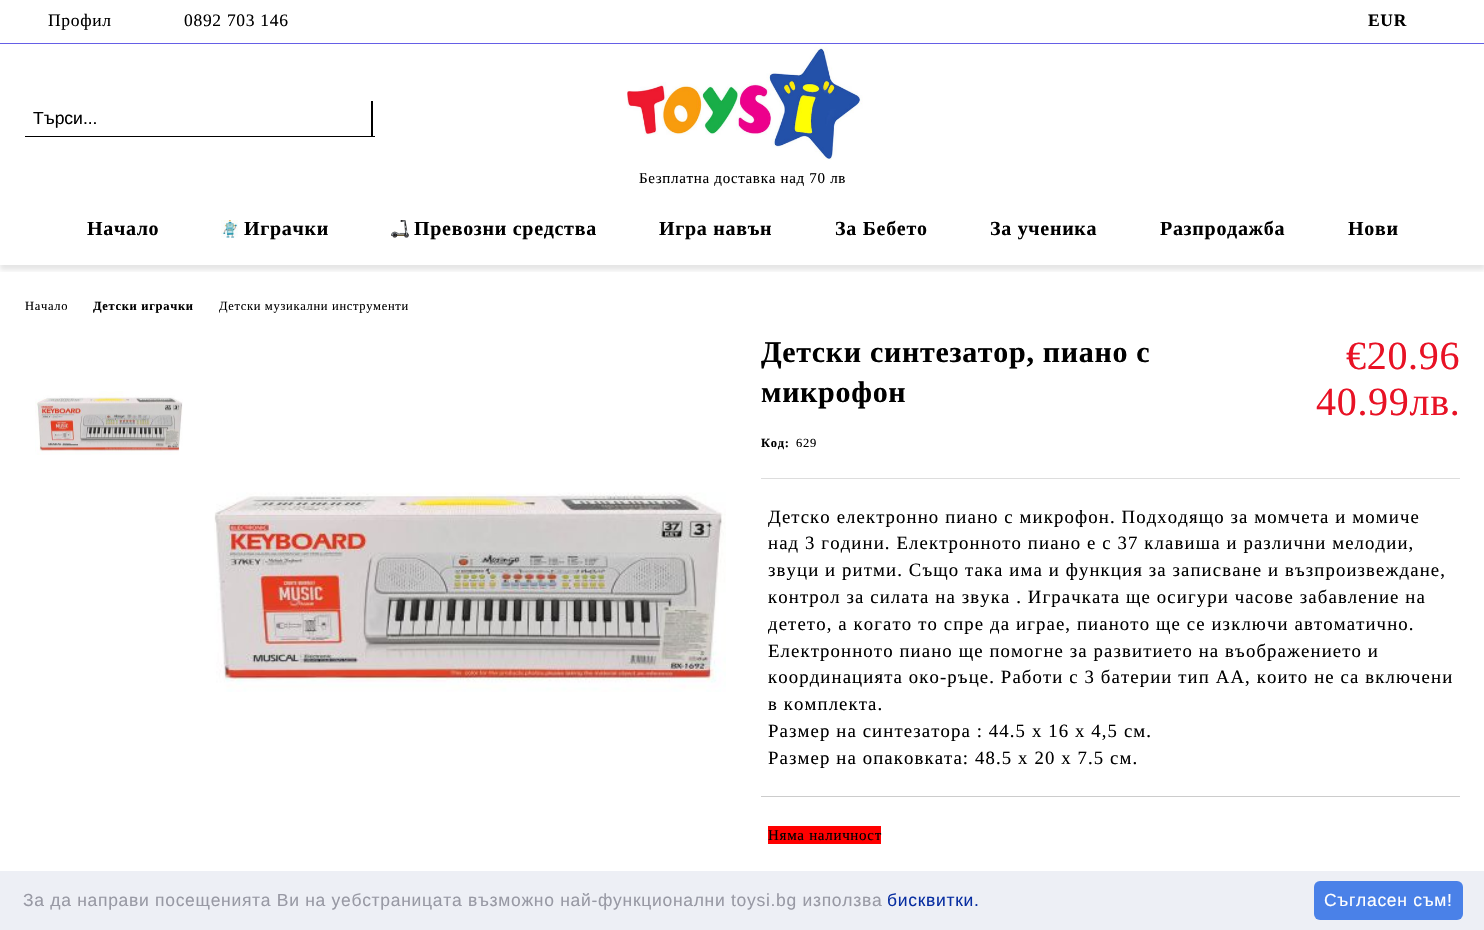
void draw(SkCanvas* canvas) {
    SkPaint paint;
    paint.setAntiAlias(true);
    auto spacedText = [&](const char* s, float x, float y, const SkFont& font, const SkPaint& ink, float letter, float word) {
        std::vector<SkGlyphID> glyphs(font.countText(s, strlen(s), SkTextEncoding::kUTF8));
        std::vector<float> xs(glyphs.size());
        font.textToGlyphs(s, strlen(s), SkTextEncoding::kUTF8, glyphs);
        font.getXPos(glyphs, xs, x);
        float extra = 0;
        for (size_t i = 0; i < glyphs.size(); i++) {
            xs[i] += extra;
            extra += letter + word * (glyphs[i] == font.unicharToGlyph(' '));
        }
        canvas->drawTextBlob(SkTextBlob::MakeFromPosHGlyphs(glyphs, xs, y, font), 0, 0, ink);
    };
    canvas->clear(0xFFFFFFFF);
    paint.setColor(0xFF655FE6);
    canvas->drawRect(SkRect::MakeXYWH(0, 43, 1484, 1), paint);
    SkFont font1(fontMgr->matchFamilyStyle("Liberation Serif", SkFontStyle::Normal()), 17.5f);
    font1.setSubpixel(true);
    paint.setColor(0xFF000000);
    spacedText("Профил", 48, 26, font1, paint, 0.7f, 0);
    spacedText("0892 703 146", 184, 26, font1, paint, 0.7f, 0);
    SkFont font2(fontMgr->matchFamilyStyle("Liberation Serif", SkFontStyle::Bold()), 17.5f);
    font2.setSubpixel(true);
    spacedText("EUR", 1368, 26, font2, paint, 0.7f, 0);
    canvas->drawRect(SkRect::MakeXYWH(25, 136, 350, 1), paint);
    SkFont font3(fontMgr->matchFamilyStyle("Liberation Sans", SkFontStyle::Normal()), 17.5f);
    font3.setSubpixel(true);
    canvas->drawString("Търси...", 33, 124, font3, paint);
    canvas->drawRect(SkRect::MakeXYWH(371, 101, 2, 35), paint);
    canvas->drawImageRect(SkImages::DeferredFromEncodedData(SkData::MakeFromFileName("img1.png")), SkRect::MakeXYWH(627, 47, 236, 113), SkSamplingOptions());
    SkFont font4(fontMgr->matchFamilyStyle("Liberation Serif", SkFontStyle::Normal()), 15);
    font4.setSubpixel(true);
    spacedText("Безплатна доставка над 70 лв", 639, 183, font4, paint, 0.7f, 0);
    canvas->save();
    canvas->clipRect(SkRect::MakeXYWH(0, 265, 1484, 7));
    paint.setColor(0x1A000000);
    paint.setMaskFilter(SkMaskFilter::MakeBlur(kNormal_SkBlurStyle, 2.5f));
    canvas->drawRect(SkRect::MakeXYWH(0, 199, 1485, 71), paint);
    paint.setMaskFilter(nullptr);
    canvas->restore();
    SkFont font5(fontMgr->matchFamilyStyle("Liberation Serif", SkFontStyle::Bold()), 20);
    font5.setSubpixel(true);
    paint.setColor(0xFF000000);
    spacedText("Начало", 87, 235, font5, paint, 0.7f, 0);
    canvas->drawImageRect(SkImages::DeferredFromEncodedData(SkData::MakeFromFileName("img2.png")), SkRect::MakeXYWH(221, 220, 17, 18), SkSamplingOptions());
    spacedText("Играчки", 244, 235, font5, paint, 0.7f, 0);
    canvas->drawImageRect(SkImages::DeferredFromEncodedData(SkData::MakeFromFileName("img3.png")), SkRect::MakeXYWH(391, 220, 18, 18), SkSamplingOptions());
    spacedText("Превозни средства", 414, 235, font5, paint, 0.7f, 0);
    spacedText("Игра навън", 659, 235, font5, paint, 0.7f, 0);
    spacedText("За Бебето", 835, 235, font5, paint, 0.7f, 0);
    spacedText("За ученика", 990, 235, font5, paint, 0.7f, 0);
    spacedText("Разпродажба", 1160, 235, font5, paint, 0.7f, 0);
    spacedText("Нови", 1348, 235, font5, paint, 0.7f, 0);
    SkFont font6(fontMgr->matchFamilyStyle("Liberation Serif", SkFontStyle::Normal()), 12.5f);
    font6.setSubpixel(true);
    spacedText("Начало", 25, 310, font6, paint, 0.7f, 0);
    SkFont font7(fontMgr->matchFamilyStyle("Liberation Serif", SkFontStyle::Bold()), 12.5f);
    font7.setSubpixel(true);
    spacedText("Детски играчки", 93, 310, font7, paint, 0.7f, 0);
    spacedText("Детски музикални инструменти", 219, 310, font6, paint, 0.7f, 0);
    canvas->drawImageRect(SkImages::DeferredFromEncodedData(SkData::MakeFromFileName("img4.png")), SkRect::MakeXYWH(35, 391, 148, 64), SkSamplingOptions());
    canvas->drawImageRect(SkImages::DeferredFromEncodedData(SkData::MakeFromFileName("img5.png")), SkRect::MakeXYWH(214, 492, 512, 200), SkSamplingOptions());
    SkFont font8(fontMgr->matchFamilyStyle("Liberation Serif", SkFontStyle::Bold()), 30);
    font8.setSubpixel(true);
    spacedText("Детски синтезатор, пиано с", 761, 362, font8, paint, 0.7f, 0);
    spacedText("микрофон", 761, 402, font8, paint, 0.7f, 0);
    SkFont font9(fontMgr->matchFamilyStyle("Liberation Serif", SkFontStyle::Normal()), 40);
    font9.setSubpixel(true);
    paint.setColor(0xFFE81225);
    spacedText("€20.96", 1346, 369, font9, paint, 0.7f, 0);
    spacedText("40.99лв.", 1316, 415, font9, paint, 0.7f, 0);
    paint.setColor(0xFFDDDDDD);
    canvas->drawRect(SkRect::MakeXYWH(761, 478, 699, 1), paint);
    paint.setColor(0xFF000000);
    spacedText("Код:", 761, 447, font7, paint, 0.7f, 0);
    spacedText("629", 796, 447, font6, paint, 0.7f, 0);
    SkFont font10(fontMgr->matchFamilyStyle("Liberation Serif", SkFontStyle::Normal()), 18.75f);
    font10.setSubpixel(true);
    spacedText("Детско електронно пиано с микрофон. Подходящо за момчета и момиче", 768, 523, font10, paint, 1.12f, 0);
    spacedText("над 3 години. Електронното пиано е с 37 клавиша и различни мелодии,", 768, 549, font10, paint, 1.12f, 0);
    spacedText("звуци и ритми. Също така има и функция за записване и възпроизвеждане,", 768, 576, font10, paint, 1.12f, 0);
    spacedText("контрол за силата на звука . Играчката ще осигури часове забавление на", 768, 603, font10, paint, 1.12f, 0);
    spacedText("детето, а когато то спре да играе, пианото ще се изключи автоматично.", 768, 630, font10, paint, 1.12f, 0);
    spacedText("Електронното пиано ще помогне за развитието на въображението и", 768, 657, font10, paint, 1.12f, 0);
    spacedText("координацията око-ръце. Работи с 3 батерии тип АА, които не са включени", 768, 683, font10, paint, 1.12f, 0);
    spacedText("в комплекта.", 768, 710, font10, paint, 1.12f, 0);
    spacedText("Размер на синтезатора : 44.5 х 16 х 4,5 см.", 768, 737, font10, paint, 1.12f, 0);
    spacedText("Размер на опаковката: 48.5 x 20 x 7.5 см.", 768, 764, font10, paint, 1.12f, 0);
    paint.setColor(0xFFCCCCCC);
    canvas->drawRect(SkRect::MakeXYWH(761, 796, 699, 1), paint);
    paint.setColor(0xFFFF0000);
    canvas->drawRect(SkRect::MakeXYWH(768, 826, 113, 18), paint);
    paint.setColor(0xFF000000);
    spacedText("Няма наличност", 768, 840, font4, paint, 0.7f, 0);
    paint.setColor(0xFFEDEFF5);
    canvas->drawRect(SkRect::MakeXYWH(0, 871, 1484, 59), paint);
    paint.setColor(0xFF9899A4);
    spacedText("За да направи посещенията Ви на уебстраницата възможно най-функционални toysi.bg използва", 23, 906, font3, paint, 0.7f, 0);
    paint.setColor(0xFF082EA1);
    spacedText("бисквитки.", 887, 906, font3, paint, 0.7f, 0);
    paint.setColor(0xFF4A81E8);
    canvas->drawRoundRect(SkRect::MakeXYWH(1314, 881, 149, 39), 6, 6, paint);
    paint.setColor(0xFFFFFFFF);
    spacedText("Съгласен съм!", 1324, 906, font3, paint, 0.7f, 0);
}
